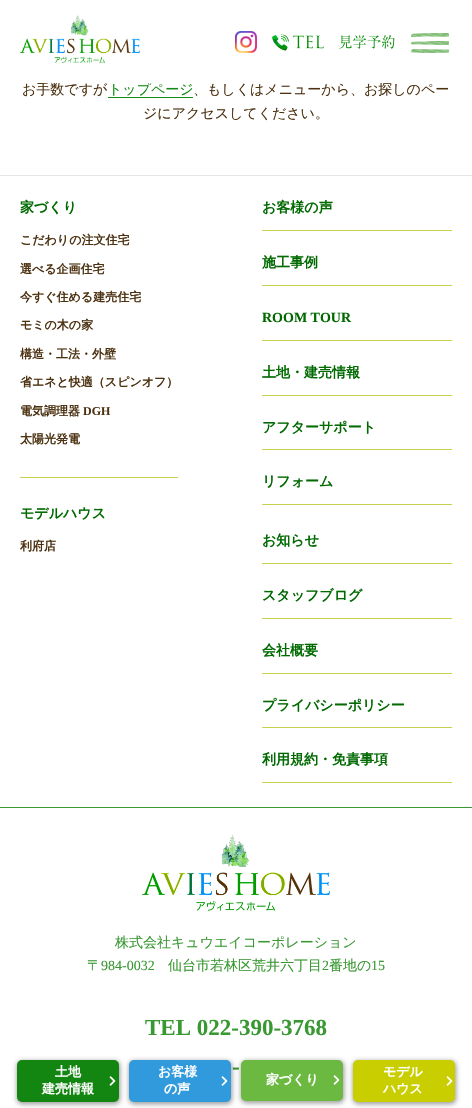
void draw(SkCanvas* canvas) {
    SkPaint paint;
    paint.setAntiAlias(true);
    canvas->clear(0xFFFFFFFF);
    SkFont font1(fontMgr->matchFamilyStyle("WenQuanYi Zen Hei", SkFontStyle(500, SkFontStyle::kNormal_Width, SkFontStyle::kUpright_Slant)), 14);
    font1.setSubpixel(true);
    paint.setColor(0xFF4D3212);
    canvas->drawString("お手数ですが", 22, 94, font1, paint);
    paint.setColor(0xFF158A13);
    canvas->drawString("トップページ", 108, 94, font1, paint);
    paint.setColor(0xFF4D3212);
    canvas->drawString("、もしくはメニューから、お探しのペー", 193, 94, font1, paint);
    paint.setColor(0xFFFFFFFF);
    canvas->drawRect(SkRect::MakeXYWH(41, 82, 341, 1), paint);
    canvas->drawImageRect(SkImages::DeferredFromEncodedData(SkData::MakeFromFileName("img1.png")), SkRect::MakeXYWH(20, 15, 120, 48), SkSamplingOptions());
    canvas->drawImageRect(SkImages::DeferredFromEncodedData(SkData::MakeFromFileName("img2.png")), SkRect::MakeXYWH(235, 31, 22, 22), SkSamplingOptions());
    canvas->drawImageRect(SkImages::DeferredFromEncodedData(SkData::MakeFromFileName("img3.png")), SkRect::MakeXYWH(272, 34, 52, 17), SkSamplingOptions());
    canvas->drawImageRect(SkImages::DeferredFromEncodedData(SkData::MakeFromFileName("img4.png")), SkRect::MakeXYWH(339, 35, 56, 14), SkSamplingOptions());
    canvas->drawImageRect(SkImages::DeferredFromEncodedData(SkData::MakeFromFileName("img5.png")), SkRect::MakeXYWH(411, 41, 38, 4), SkSamplingOptions());
    canvas->drawImageRect(SkImages::DeferredFromEncodedData(SkData::MakeFromFileName("img6.png")), SkRect::MakeXYWH(411, 33, 38, 4), SkSamplingOptions());
    canvas->drawImageRect(SkImages::DeferredFromEncodedData(SkData::MakeFromFileName("img7.png")), SkRect::MakeXYWH(411, 49, 38, 4), SkSamplingOptions());
    paint.setColor(0xFF158A13);
    canvas->drawRect(SkRect::MakeXYWH(108, 97, 85, 1), paint);
    paint.setColor(0xFF4D3212);
    canvas->drawString("ジにアクセスしてください。", 143, 118, font1, paint);
    paint.setColor(0xFFE5E5E5);
    canvas->drawRect(SkRect::MakeXYWH(0, 175, 472, 1), paint);
    paint.setColor(0xFFC7D04F);
    canvas->drawRect(SkRect::MakeXYWH(20, 477, 158, 1), paint);
    SkFont font2(fontMgr->matchFamilyStyle("WenQuanYi Zen Hei", SkFontStyle::Bold()), 14);
    font2.setSubpixel(true);
    paint.setColor(0xFF006900);
    canvas->drawString("家づくり", 20, 212, font2, paint);
    SkFont font3(fontMgr->matchFamilyStyle("WenQuanYi Zen Hei", SkFontStyle::Bold()), 12);
    font3.setSubpixel(true);
    paint.setColor(0xFF4D3212);
    canvas->drawString("こだわりの注文住宅", 20, 244, font3, paint);
    canvas->drawString("選べる企画住宅", 20, 273, font3, paint);
    canvas->drawString("今すぐ住める建売住宅", 20, 301, font3, paint);
    canvas->drawString("モミの木の家", 20, 329, font3, paint);
    canvas->drawString("構造・工法・外壁", 20, 358, font3, paint);
    canvas->drawString("省エネと快適（スピンオフ）", 20, 386, font3, paint);
    canvas->drawString("電気調理器", 20, 415, font3, paint);
    SkFont font4(fontMgr->matchFamilyStyle("Liberation Serif", SkFontStyle::Bold()), 12);
    font4.setSubpixel(true);
    canvas->drawString("DGH", 83, 415, font4, paint);
    canvas->drawString("太陽光発電", 20, 443, font3, paint);
    paint.setColor(0xFF006900);
    canvas->drawString("モデルハウス", 20, 518, font2, paint);
    paint.setColor(0xFF4D3212);
    canvas->drawString("利府店", 20, 550, font3, paint);
    paint.setColor(0xFFC7D04F);
    canvas->drawRect(SkRect::MakeXYWH(262, 230, 190, 1), paint);
    paint.setColor(0xFF006900);
    canvas->drawString("お客様の声", 262, 212, font2, paint);
    paint.setColor(0xFFC7D04F);
    canvas->drawRect(SkRect::MakeXYWH(262, 285, 190, 1), paint);
    paint.setColor(0xFF006900);
    canvas->drawString("施工事例", 262, 267, font2, paint);
    paint.setColor(0xFFC7D04F);
    canvas->drawRect(SkRect::MakeXYWH(262, 340, 190, 1), paint);
    SkFont font5(fontMgr->matchFamilyStyle("Liberation Serif", SkFontStyle::Bold()), 14);
    font5.setSubpixel(true);
    paint.setColor(0xFF006900);
    canvas->drawString("ROOM TOUR", 262, 322, font5, paint);
    paint.setColor(0xFFC7D04F);
    canvas->drawRect(SkRect::MakeXYWH(262, 395, 190, 1), paint);
    paint.setColor(0xFF006900);
    canvas->drawString("土地・建売情報", 262, 377, font2, paint);
    paint.setColor(0xFFC7D04F);
    canvas->drawRect(SkRect::MakeXYWH(262, 449, 190, 1), paint);
    paint.setColor(0xFF006900);
    canvas->drawString("アフターサポート", 262, 432, font2, paint);
    paint.setColor(0xFFC7D04F);
    canvas->drawRect(SkRect::MakeXYWH(262, 504, 190, 1), paint);
    paint.setColor(0xFF006900);
    canvas->drawString("リフォーム", 262, 486, font2, paint);
    paint.setColor(0xFFC7D04F);
    canvas->drawRect(SkRect::MakeXYWH(262, 563, 190, 1), paint);
    paint.setColor(0xFF006900);
    canvas->drawString("お知らせ", 262, 545, font2, paint);
    paint.setColor(0xFFC7D04F);
    canvas->drawRect(SkRect::MakeXYWH(262, 618, 190, 1), paint);
    paint.setColor(0xFF006900);
    canvas->drawString("スタッフブログ", 262, 600, font2, paint);
    paint.setColor(0xFFC7D04F);
    canvas->drawRect(SkRect::MakeXYWH(262, 673, 190, 1), paint);
    paint.setColor(0xFF006900);
    canvas->drawString("会社概要", 262, 655, font2, paint);
    paint.setColor(0xFFC7D04F);
    canvas->drawRect(SkRect::MakeXYWH(262, 727, 190, 1), paint);
    paint.setColor(0xFF006900);
    canvas->drawString("プライバシーポリシー", 262, 710, font2, paint);
    paint.setColor(0xFFC7D04F);
    canvas->drawRect(SkRect::MakeXYWH(262, 782, 190, 1), paint);
    paint.setColor(0xFF006900);
    canvas->drawString("利用規約・免責事項", 262, 764, font2, paint);
    paint.setColor(0xFF389832);
    canvas->drawRect(SkRect::MakeXYWH(0, 807, 472, 1), paint);
    canvas->drawImageRect(SkImages::DeferredFromEncodedData(SkData::MakeFromFileName("img8.png")), SkRect::MakeXYWH(142, 835, 188, 76), SkSamplingOptions());
    canvas->drawString("株式会社キュウエイコーポレーション", 115, 947, font1, paint);
    canvas->drawString("〒", 87, 970, font1, paint);
    SkFont font6(fontMgr->matchFamilyStyle("Liberation Serif", SkFontStyle::Normal()), 14);
    font6.setSubpixel(true);
    canvas->drawString("984-0032", 101, 970, font6, paint);
    canvas->drawString("仙台市若林区荒井六丁目", 168, 970, font1, paint);
    canvas->drawString("2", 322, 970, font6, paint);
    canvas->drawString("番地の", 329, 970, font1, paint);
    canvas->drawString("15", 371, 970, font6, paint);
    SkFont font7(fontMgr->matchFamilyStyle("Liberation Serif", SkFontStyle::Bold()), 23);
    font7.setSubpixel(true);
    canvas->drawString("TEL 022-390-3768", 145, 1035, font7, paint);
    canvas->drawString("-", 232, 1074, font7, paint);
    paint.setColor(0x66000000);
    paint.setMaskFilter(SkMaskFilter::MakeBlur(kNormal_SkBlurStyle, 2.5f));
    canvas->drawRoundRect(SkRect::MakeXYWH(17, 1061, 103, 43), 5, 5, paint);
    paint.setMaskFilter(nullptr);
    paint.setColor(0xFF138611);
    canvas->drawRoundRect(SkRect::MakeXYWH(17, 1060, 102, 42), 5, 5, paint);
    SkFont font8(fontMgr->matchFamilyStyle("WenQuanYi Zen Hei", SkFontStyle::Bold()), 13);
    font8.setSubpixel(true);
    paint.setColor(0xFFFFFFFF);
    canvas->drawString("土地", 55, 1076, font8, paint);
    canvas->drawString("建売情報", 42, 1093, font8, paint);
    canvas->drawImageRect(SkImages::DeferredFromEncodedData(SkData::MakeFromFileName("img9.png")), SkRect::MakeXYWH(109, 1076, 7, 10), SkSamplingOptions());
    paint.setColor(0x66000000);
    paint.setMaskFilter(SkMaskFilter::MakeBlur(kNormal_SkBlurStyle, 2.5f));
    canvas->drawRoundRect(SkRect::MakeXYWH(129, 1061, 103, 43), 5, 5, paint);
    paint.setMaskFilter(nullptr);
    paint.setColor(0xFF309ADD);
    canvas->drawRoundRect(SkRect::MakeXYWH(129, 1060, 102, 42), 5, 5, paint);
    paint.setColor(0xFFFFFFFF);
    canvas->drawString("お客様", 158, 1076, font8, paint);
    canvas->drawString("の声", 164, 1093, font8, paint);
    canvas->drawImageRect(SkImages::DeferredFromEncodedData(SkData::MakeFromFileName("img10.png")), SkRect::MakeXYWH(221, 1076, 7, 10), SkSamplingOptions());
    paint.setColor(0x66000000);
    paint.setMaskFilter(SkMaskFilter::MakeBlur(kNormal_SkBlurStyle, 2.5f));
    canvas->drawRoundRect(SkRect::MakeXYWH(241, 1061, 103, 42), 5, 5, paint);
    paint.setMaskFilter(nullptr);
    paint.setColor(0xFF6CB942);
    canvas->drawRoundRect(SkRect::MakeXYWH(241, 1060, 102, 41), 5, 5, paint);
    paint.setColor(0xFFFFFFFF);
    canvas->drawString("家づくり", 266, 1084, font8, paint);
    canvas->drawImageRect(SkImages::DeferredFromEncodedData(SkData::MakeFromFileName("img11.png")), SkRect::MakeXYWH(333, 1075, 7, 10), SkSamplingOptions());
    paint.setColor(0x66000000);
    paint.setMaskFilter(SkMaskFilter::MakeBlur(kNormal_SkBlurStyle, 2.5f));
    canvas->drawRoundRect(SkRect::MakeXYWH(353, 1061, 103, 43), 5, 5, paint);
    paint.setMaskFilter(nullptr);
    paint.setColor(0xFFC9CE00);
    canvas->drawRoundRect(SkRect::MakeXYWH(353, 1060, 102, 42), 5, 5, paint);
    paint.setColor(0xFFFFFFFF);
    canvas->drawString("モデル", 383, 1076, font8, paint);
    canvas->drawString("ハウス", 383, 1093, font8, paint);
    canvas->drawImageRect(SkImages::DeferredFromEncodedData(SkData::MakeFromFileName("img12.png")), SkRect::MakeXYWH(446, 1076, 7, 10), SkSamplingOptions());
}
